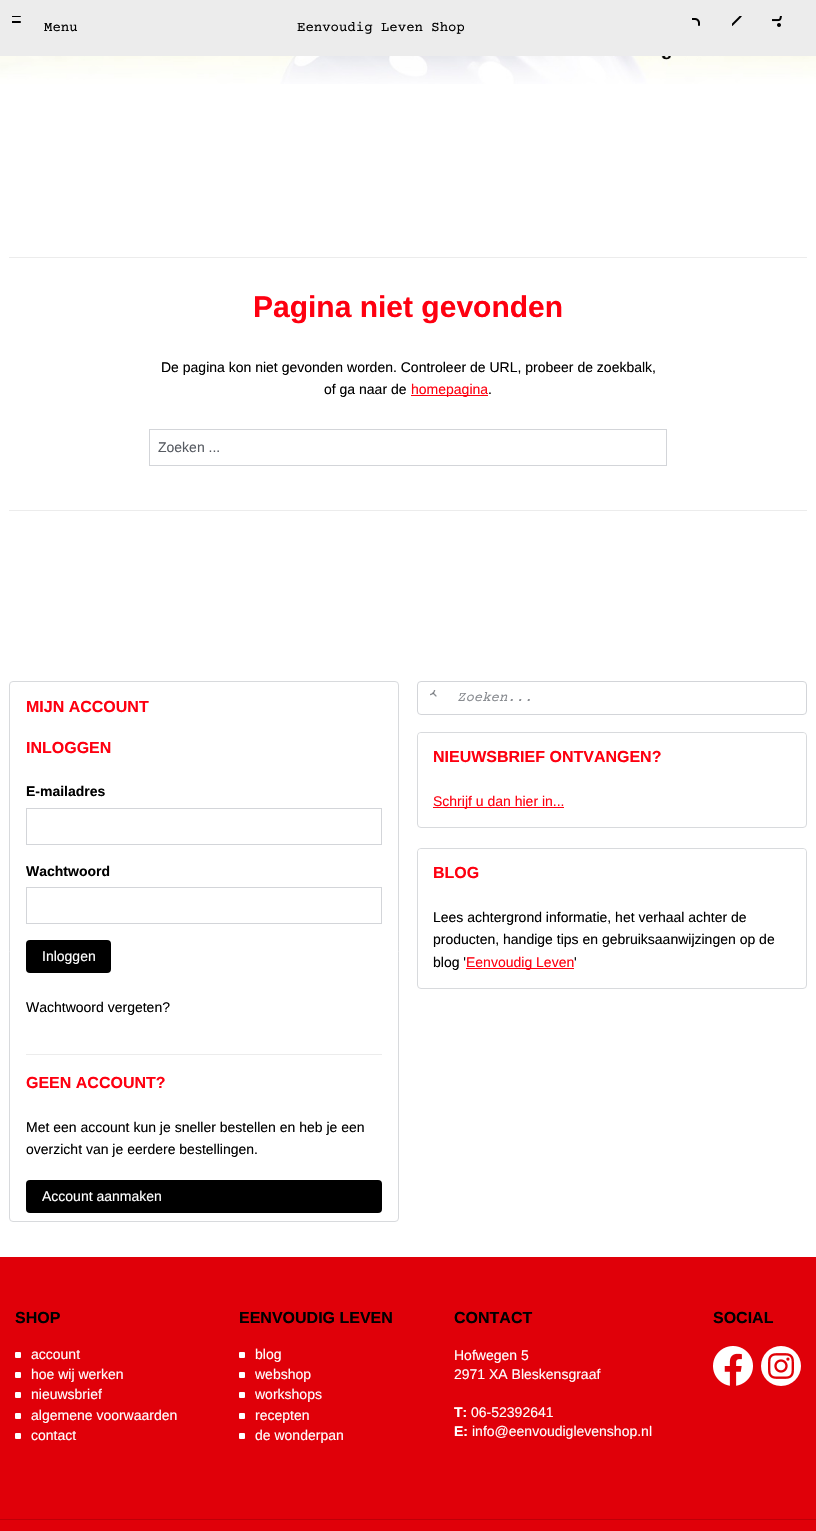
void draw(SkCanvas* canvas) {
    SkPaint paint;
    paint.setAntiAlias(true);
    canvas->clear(0xFFFFFFFF);
    paint.setColor(0xFFECECEC);
    canvas->drawRect(SkRect::MakeXYWH(0, 0, 816, 56), paint);
    canvas->drawImageRect(SkImages::DeferredFromEncodedData(SkData::MakeFromFileName("img1.png")), SkRect::MakeXYWH(12, 16, 9, 7), SkSamplingOptions());
    SkFont font1(fontMgr->matchFamilyStyle("Courier Prime", SkFontStyle::Normal()), 14);
    font1.setSubpixel(true);
    paint.setColor(0xFF000000);
    canvas->drawString("Menu", 44, 31, font1, paint);
    canvas->drawString("Eenvoudig Leven Shop", 297, 31, font1, paint);
    canvas->drawImageRect(SkImages::DeferredFromEncodedData(SkData::MakeFromFileName("img2.png")), SkRect::MakeXYWH(692, 18, 8, 8), SkSamplingOptions());
    canvas->drawImageRect(SkImages::DeferredFromEncodedData(SkData::MakeFromFileName("img3.png")), SkRect::MakeXYWH(732, 16, 10, 10), SkSamplingOptions());
    canvas->drawImageRect(SkImages::DeferredFromEncodedData(SkData::MakeFromFileName("img4.png")), SkRect::MakeXYWH(772, 16, 10, 11), SkSamplingOptions());
    canvas->drawImageRect(SkImages::DeferredFromEncodedData(SkData::MakeFromFileName("img5.png")), SkRect::MakeXYWH(0, 56, 816, 28), SkSamplingOptions());
    paint.setColor(0xFFECECEC);
    canvas->drawRect(SkRect::MakeXYWH(9, 257, 798, 1), paint);
    canvas->drawRect(SkRect::MakeXYWH(9, 510, 798, 1), paint);
    SkFont font2(fontMgr->matchFamilyStyle("Liberation Sans", SkFontStyle::Bold()), 30);
    font2.setSubpixel(true);
    paint.setColor(0xFFFE0010);
    canvas->drawString("Pagina niet gevonden", 253, 317, font2, paint);
    SkFont font3(fontMgr->matchFamilyStyle("Liberation Sans", SkFontStyle::Normal()), 14);
    font3.setSubpixel(true);
    paint.setColor(0xFF000000);
    canvas->drawString("De pagina kon niet gevonden worden. Controleer de URL, probeer de zoekbalk,", 161, 372, font3, paint);
    canvas->drawString("of ga naar de", 324, 394, font3, paint);
    paint.setColor(0xFFFE0010);
    canvas->drawRect(SkRect::MakeXYWH(411, 395, 77, 1), paint);
    canvas->drawString("homepagina", 411, 394, font3, paint);
    paint.setColor(0xFF000000);
    canvas->drawString(".", 488, 394, font3, paint);
    paint.setStyle(SkPaint::kStroke_Style);
    paint.setStrokeWidth(1);
    paint.setColor(0xFFD3D5D9);
    canvas->drawRect(SkRect::MakeXYWH(149.5f, 429.5f, 517, 36), paint);
    paint.setStyle(SkPaint::kFill_Style);
    paint.setColor(0xFF575B62);
    canvas->drawString("Zoeken ...", 158, 452, font3, paint);
    paint.setStyle(SkPaint::kStroke_Style);
    paint.setColor(0xFFD8DADD);
    canvas->drawRoundRect(SkRect::MakeXYWH(9.5f, 681.5f, 389, 540), 3.5f, 3.5f, paint);
    SkFont font4(fontMgr->matchFamilyStyle("Liberation Sans", SkFontStyle::Bold()), 16);
    font4.setSubpixel(true);
    paint.setStyle(SkPaint::kFill_Style);
    paint.setColor(0xFFFE0010);
    canvas->drawString("MIJN ACCOUNT", 26, 712, font4, paint);
    canvas->drawString("INLOGGEN", 26, 753, font4, paint);
    SkFont font5(fontMgr->matchFamilyStyle("Liberation Sans", SkFontStyle::Bold()), 14);
    font5.setSubpixel(true);
    paint.setColor(0xFF000000);
    canvas->drawString("E-mailadres", 26, 796, font5, paint);
    paint.setStyle(SkPaint::kStroke_Style);
    paint.setColor(0xFFD3D5D9);
    canvas->drawRect(SkRect::MakeXYWH(26.5f, 808.5f, 355, 36), paint);
    paint.setStyle(SkPaint::kFill_Style);
    paint.setColor(0xFF000000);
    canvas->drawString("Wachtwoord", 26, 876, font5, paint);
    paint.setStyle(SkPaint::kStroke_Style);
    paint.setColor(0xFFD3D5D9);
    canvas->drawRect(SkRect::MakeXYWH(26.5f, 887.5f, 355, 36), paint);
    paint.setStyle(SkPaint::kFill_Style);
    paint.setColor(0xFF000000);
    canvas->drawRoundRect(SkRect::MakeXYWH(26, 940, 85, 33), 4, 4, paint);
    paint.setColor(0xFFFFFFFF);
    canvas->drawString("Inloggen", 42, 961, font3, paint);
    paint.setColor(0xFF000000);
    canvas->drawString("Wachtwoord vergeten?", 26, 1012, font3, paint);
    paint.setColor(0xFFECECEC);
    canvas->drawRect(SkRect::MakeXYWH(26, 1054, 356, 1), paint);
    paint.setColor(0xFFFE0010);
    canvas->drawString("GEEN ACCOUNT?", 26, 1088, font4, paint);
    paint.setColor(0xFF000000);
    canvas->drawString("Met een account kun je sneller bestellen en heb je een", 26, 1132, font3, paint);
    canvas->drawString("overzicht van je eerdere bestellingen.", 26, 1154, font3, paint);
    canvas->drawRoundRect(SkRect::MakeXYWH(26, 1180, 356, 33), 4, 4, paint);
    paint.setColor(0xFFFFFFFF);
    canvas->drawString("Account aanmaken", 42, 1201, font3, paint);
    paint.setStyle(SkPaint::kStroke_Style);
    paint.setColor(0xFFD3D5D9);
    canvas->drawRoundRect(SkRect::MakeXYWH(417.5f, 681.5f, 389, 33), 3.5f, 3.5f, paint);
    canvas->drawImageRect(SkImages::DeferredFromEncodedData(SkData::MakeFromFileName("img6.png")), SkRect::MakeXYWH(430, 690, 7, 7), SkSamplingOptions());
    SkFont font6(fontMgr->matchFamilyStyle("Courier Prime", SkFontStyle::Italic()), 14);
    font6.setSubpixel(true);
    paint.setStyle(SkPaint::kFill_Style);
    paint.setColor(0xFF898C91);
    canvas->drawString("Zoeken...", 457, 701, font6, paint);
    paint.setStyle(SkPaint::kStroke_Style);
    paint.setColor(0xFFD8DADD);
    canvas->drawRoundRect(SkRect::MakeXYWH(417.5f, 732.5f, 389, 95), 3.5f, 3.5f, paint);
    paint.setStyle(SkPaint::kFill_Style);
    paint.setColor(0xFFFFFFFF);
    canvas->drawPath(SkPathBuilder().moveTo(421, 733).lineTo(803, 733).cubicTo(804.5f, 733, 806, 734.5f, 806, 736).lineTo(806, 766).lineTo(418, 766).lineTo(418, 736).cubicTo(418, 734.5f, 419.5f, 733, 421, 733).close().detach(), paint);
    paint.setColor(0xFFFE0010);
    canvas->drawString("NIEUWSBRIEF ONTVANGEN?", 433, 762, font4, paint);
    canvas->drawRect(SkRect::MakeXYWH(433, 807, 131, 1), paint);
    canvas->drawString("Schrijf u dan hier in...", 433, 806, font3, paint);
    paint.setStyle(SkPaint::kStroke_Style);
    paint.setColor(0xFFD8DADD);
    canvas->drawRoundRect(SkRect::MakeXYWH(417.5f, 848.5f, 389, 140), 3.5f, 3.5f, paint);
    paint.setStyle(SkPaint::kFill_Style);
    paint.setColor(0xFFFFFFFF);
    canvas->drawPath(SkPathBuilder().moveTo(421, 849).lineTo(803, 849).cubicTo(804.5f, 849, 806, 850.5f, 806, 852).lineTo(806, 882).lineTo(418, 882).lineTo(418, 852).cubicTo(418, 850.5f, 419.5f, 849, 421, 849).close().detach(), paint);
    paint.setColor(0xFFFE0010);
    canvas->drawString("BLOG", 433, 878, font4, paint);
    paint.setColor(0xFF000000);
    canvas->drawString("Lees achtergrond informatie, het verhaal achter de", 433, 922, font3, paint);
    canvas->drawString("producten, handige tips en gebruiksaanwijzingen op de", 433, 944, font3, paint);
    canvas->drawString("blog '", 433, 967, font3, paint);
    paint.setColor(0xFFFE0010);
    canvas->drawRect(SkRect::MakeXYWH(466, 968, 108, 1), paint);
    canvas->drawString("Eenvoudig Leven", 466, 967, font3, paint);
    paint.setColor(0xFF000000);
    canvas->drawString("'", 574, 967, font3, paint);
    paint.setColor(0xFFE00009);
    canvas->drawRect(SkRect::MakeXYWH(0, 1257, 816, 262), paint);
    paint.setColor(0xFF000000);
    canvas->drawString("SHOP", 15, 1323, font4, paint);
    paint.setColor(0xFFFFFFFF);
    canvas->drawRoundRect(SkRect::MakeXYWH(15, 1352, 6, 6), 1, 1, paint);
    canvas->drawString("account", 31, 1359, font3, paint);
    canvas->drawRoundRect(SkRect::MakeXYWH(15, 1372, 6, 6), 1, 1, paint);
    canvas->drawString("hoe wij werken", 31, 1379, font3, paint);
    canvas->drawRoundRect(SkRect::MakeXYWH(15, 1392, 6, 6), 1, 1, paint);
    canvas->drawString("nieuwsbrief", 31, 1399, font3, paint);
    canvas->drawRoundRect(SkRect::MakeXYWH(15, 1413, 6, 6), 1, 1, paint);
    canvas->drawString("algemene voorwaarden", 31, 1420, font3, paint);
    canvas->drawRoundRect(SkRect::MakeXYWH(15, 1433, 6, 6), 1, 1, paint);
    canvas->drawString("contact", 31, 1440, font3, paint);
    paint.setColor(0xFF000000);
    canvas->drawString("EENVOUDIG LEVEN", 239, 1323, font4, paint);
    paint.setColor(0xFFFFFFFF);
    canvas->drawRoundRect(SkRect::MakeXYWH(239, 1352, 6, 6), 1, 1, paint);
    canvas->drawString("blog", 255, 1359, font3, paint);
    canvas->drawRoundRect(SkRect::MakeXYWH(239, 1372, 6, 6), 1, 1, paint);
    canvas->drawString("webshop", 255, 1379, font3, paint);
    canvas->drawRoundRect(SkRect::MakeXYWH(239, 1392, 6, 6), 1, 1, paint);
    canvas->drawString("workshops", 255, 1399, font3, paint);
    canvas->drawRoundRect(SkRect::MakeXYWH(239, 1413, 6, 6), 1, 1, paint);
    canvas->drawString("recepten", 255, 1420, font3, paint);
    canvas->drawRoundRect(SkRect::MakeXYWH(239, 1433, 6, 6), 1, 1, paint);
    canvas->drawString("de wonderpan", 255, 1440, font3, paint);
    paint.setColor(0xFF000000);
    canvas->drawString("CONTACT", 454, 1323, font4, paint);
    paint.setColor(0xFFFFFFFF);
    canvas->drawString("Hofwegen 5", 454, 1360, font3, paint);
    canvas->drawString("2971 XA Bleskensgraaf", 454, 1379, font3, paint);
    canvas->drawString("T:", 454, 1417, font5, paint);
    canvas->drawString("06-52392641", 471, 1417, font3, paint);
    canvas->drawString("E:", 454, 1436, font5, paint);
    canvas->drawString("info@eenvoudiglevenshop.nl", 472, 1436, font3, paint);
    paint.setColor(0xFF000000);
    canvas->drawString("SOCIAL", 713, 1323, font4, paint);
    canvas->drawImageRect(SkImages::DeferredFromEncodedData(SkData::MakeFromFileName("img7.png")), SkRect::MakeXYWH(713, 1346, 40, 40), SkSamplingOptions());
    canvas->drawImageRect(SkImages::DeferredFromEncodedData(SkData::MakeFromFileName("img8.png")), SkRect::MakeXYWH(761, 1346, 40, 40), SkSamplingOptions());
    paint.setColor(0xFFE00009);
    canvas->drawRect(SkRect::MakeXYWH(0, 1520, 816, 11), paint);
    paint.setColor(0xFFBE0008);
    canvas->drawRect(SkRect::MakeXYWH(0, 1519, 816, 1), paint);
}
